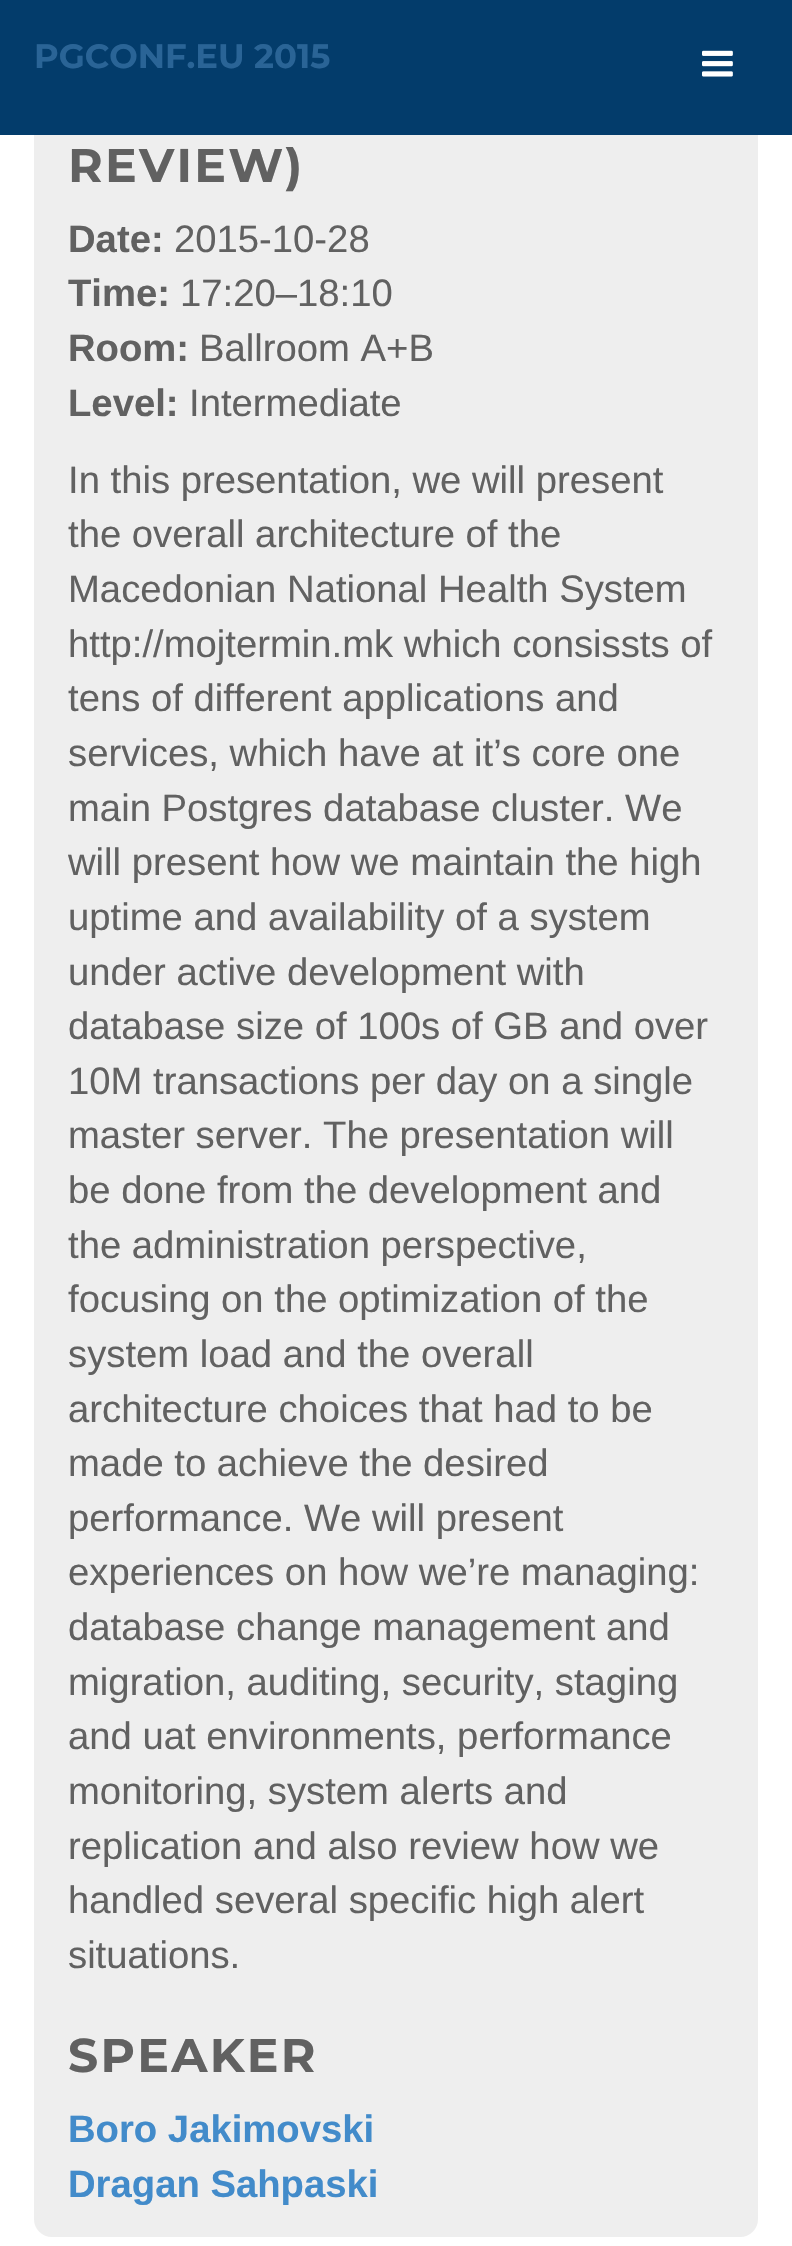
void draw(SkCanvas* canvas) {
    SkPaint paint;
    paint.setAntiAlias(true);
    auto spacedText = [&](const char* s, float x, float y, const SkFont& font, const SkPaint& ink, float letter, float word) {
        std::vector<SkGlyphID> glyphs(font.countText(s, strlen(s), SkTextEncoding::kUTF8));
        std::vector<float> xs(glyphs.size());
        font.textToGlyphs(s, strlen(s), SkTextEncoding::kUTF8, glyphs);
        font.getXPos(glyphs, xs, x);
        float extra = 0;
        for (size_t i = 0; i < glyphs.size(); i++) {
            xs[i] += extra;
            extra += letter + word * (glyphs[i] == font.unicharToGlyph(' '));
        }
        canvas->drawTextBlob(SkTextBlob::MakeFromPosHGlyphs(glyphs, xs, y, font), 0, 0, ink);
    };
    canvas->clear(0xFFFFFFFF);
    paint.setColor(0xFFEEEEEE);
    canvas->drawRoundRect(SkRect::MakeXYWH(34, -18, 724, 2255), 18, 18, paint);
    paint.setColor(0xFF033C6B);
    canvas->drawRect(SkRect::MakeXYWH(0, 0, 792, 135), paint);
    SkFont font1(fontMgr->matchFamilyStyle("Montserrat", SkFontStyle::Bold()), 33.75f);
    font1.setSubpixel(true);
    paint.setColor(0xFF2A6496);
    canvas->drawString("PGCONF.EU 2015", 34, 68, font1, paint);
    canvas->drawImageRect(SkImages::DeferredFromEncodedData(SkData::MakeFromFileName("img1.png")), SkRect::MakeXYWH(702, 50, 31, 27), SkSamplingOptions());
    SkFont font2(fontMgr->matchFamilyStyle("Montserrat", SkFontStyle::Bold()), 47.25f);
    font2.setSubpixel(true);
    paint.setColor(0xFF616161);
    spacedText("REVIEW)", 68, 182, font2, paint, 2.25f, 0);
    SkFont font3(fontMgr->matchFamilyStyle("Liberation Sans", SkFontStyle::Bold()), 38.25f);
    font3.setSubpixel(true);
    canvas->drawString("Date:", 68, 252, font3, paint);
    SkFont font4(fontMgr->matchFamilyStyle("Liberation Sans", SkFontStyle::Normal()), 38.25f);
    font4.setSubpixel(true);
    canvas->drawString("2015-10-28", 174, 252, font4, paint);
    canvas->drawString("Time:", 68, 306, font3, paint);
    canvas->drawString("17:20–18:10", 180, 306, font4, paint);
    canvas->drawString("Room:", 68, 361, font3, paint);
    canvas->drawString("Ballroom A+B", 199, 361, font4, paint);
    canvas->drawString("Level:", 68, 416, font3, paint);
    canvas->drawString("Intermediate", 189, 416, font4, paint);
    canvas->drawString("In this presentation, we will present", 68, 493, font4, paint);
    canvas->drawString("the overall architecture of the", 68, 547, font4, paint);
    canvas->drawString("Macedonian National Health System", 68, 602, font4, paint);
    canvas->drawString("http://mojtermin.mk which consissts of", 68, 657, font4, paint);
    canvas->drawString("tens of different applications and", 68, 711, font4, paint);
    canvas->drawString("services, which have at it’s core one", 68, 766, font4, paint);
    canvas->drawString("main Postgres database cluster. We", 68, 821, font4, paint);
    canvas->drawString("will present how we maintain the high", 68, 875, font4, paint);
    canvas->drawString("uptime and availability of a system", 68, 930, font4, paint);
    canvas->drawString("under active development with", 68, 985, font4, paint);
    canvas->drawString("database size of 100s of GB and over", 68, 1039, font4, paint);
    canvas->drawString("10M transactions per day on a single", 68, 1094, font4, paint);
    canvas->drawString("master server. The presentation will", 68, 1148, font4, paint);
    canvas->drawString("be done from the development and", 68, 1203, font4, paint);
    canvas->drawString("the administration perspective,", 68, 1258, font4, paint);
    canvas->drawString("focusing on the optimization of the", 68, 1312, font4, paint);
    canvas->drawString("system load and the overall", 68, 1367, font4, paint);
    canvas->drawString("architecture choices that had to be", 68, 1422, font4, paint);
    canvas->drawString("made to achieve the desired", 68, 1476, font4, paint);
    canvas->drawString("performance. We will present", 68, 1531, font4, paint);
    canvas->drawString("experiences on how we’re managing:", 68, 1585, font4, paint);
    canvas->drawString("database change management and", 68, 1640, font4, paint);
    canvas->drawString("migration, auditing, security, staging", 68, 1695, font4, paint);
    canvas->drawString("and uat environments, performance", 68, 1749, font4, paint);
    canvas->drawString("monitoring, system alerts and", 68, 1804, font4, paint);
    canvas->drawString("replication and also review how we", 68, 1859, font4, paint);
    canvas->drawString("handled several specific high alert", 68, 1913, font4, paint);
    canvas->drawString("situations.", 68, 1968, font4, paint);
    spacedText("SPEAKER", 68, 2072, font2, paint, 2.25f, 0);
    paint.setColor(0xFF428BCA);
    canvas->drawString("Boro Jakimovski", 68, 2142, font3, paint);
    canvas->drawString("Dragan Sahpaski", 68, 2197, font3, paint);
}
